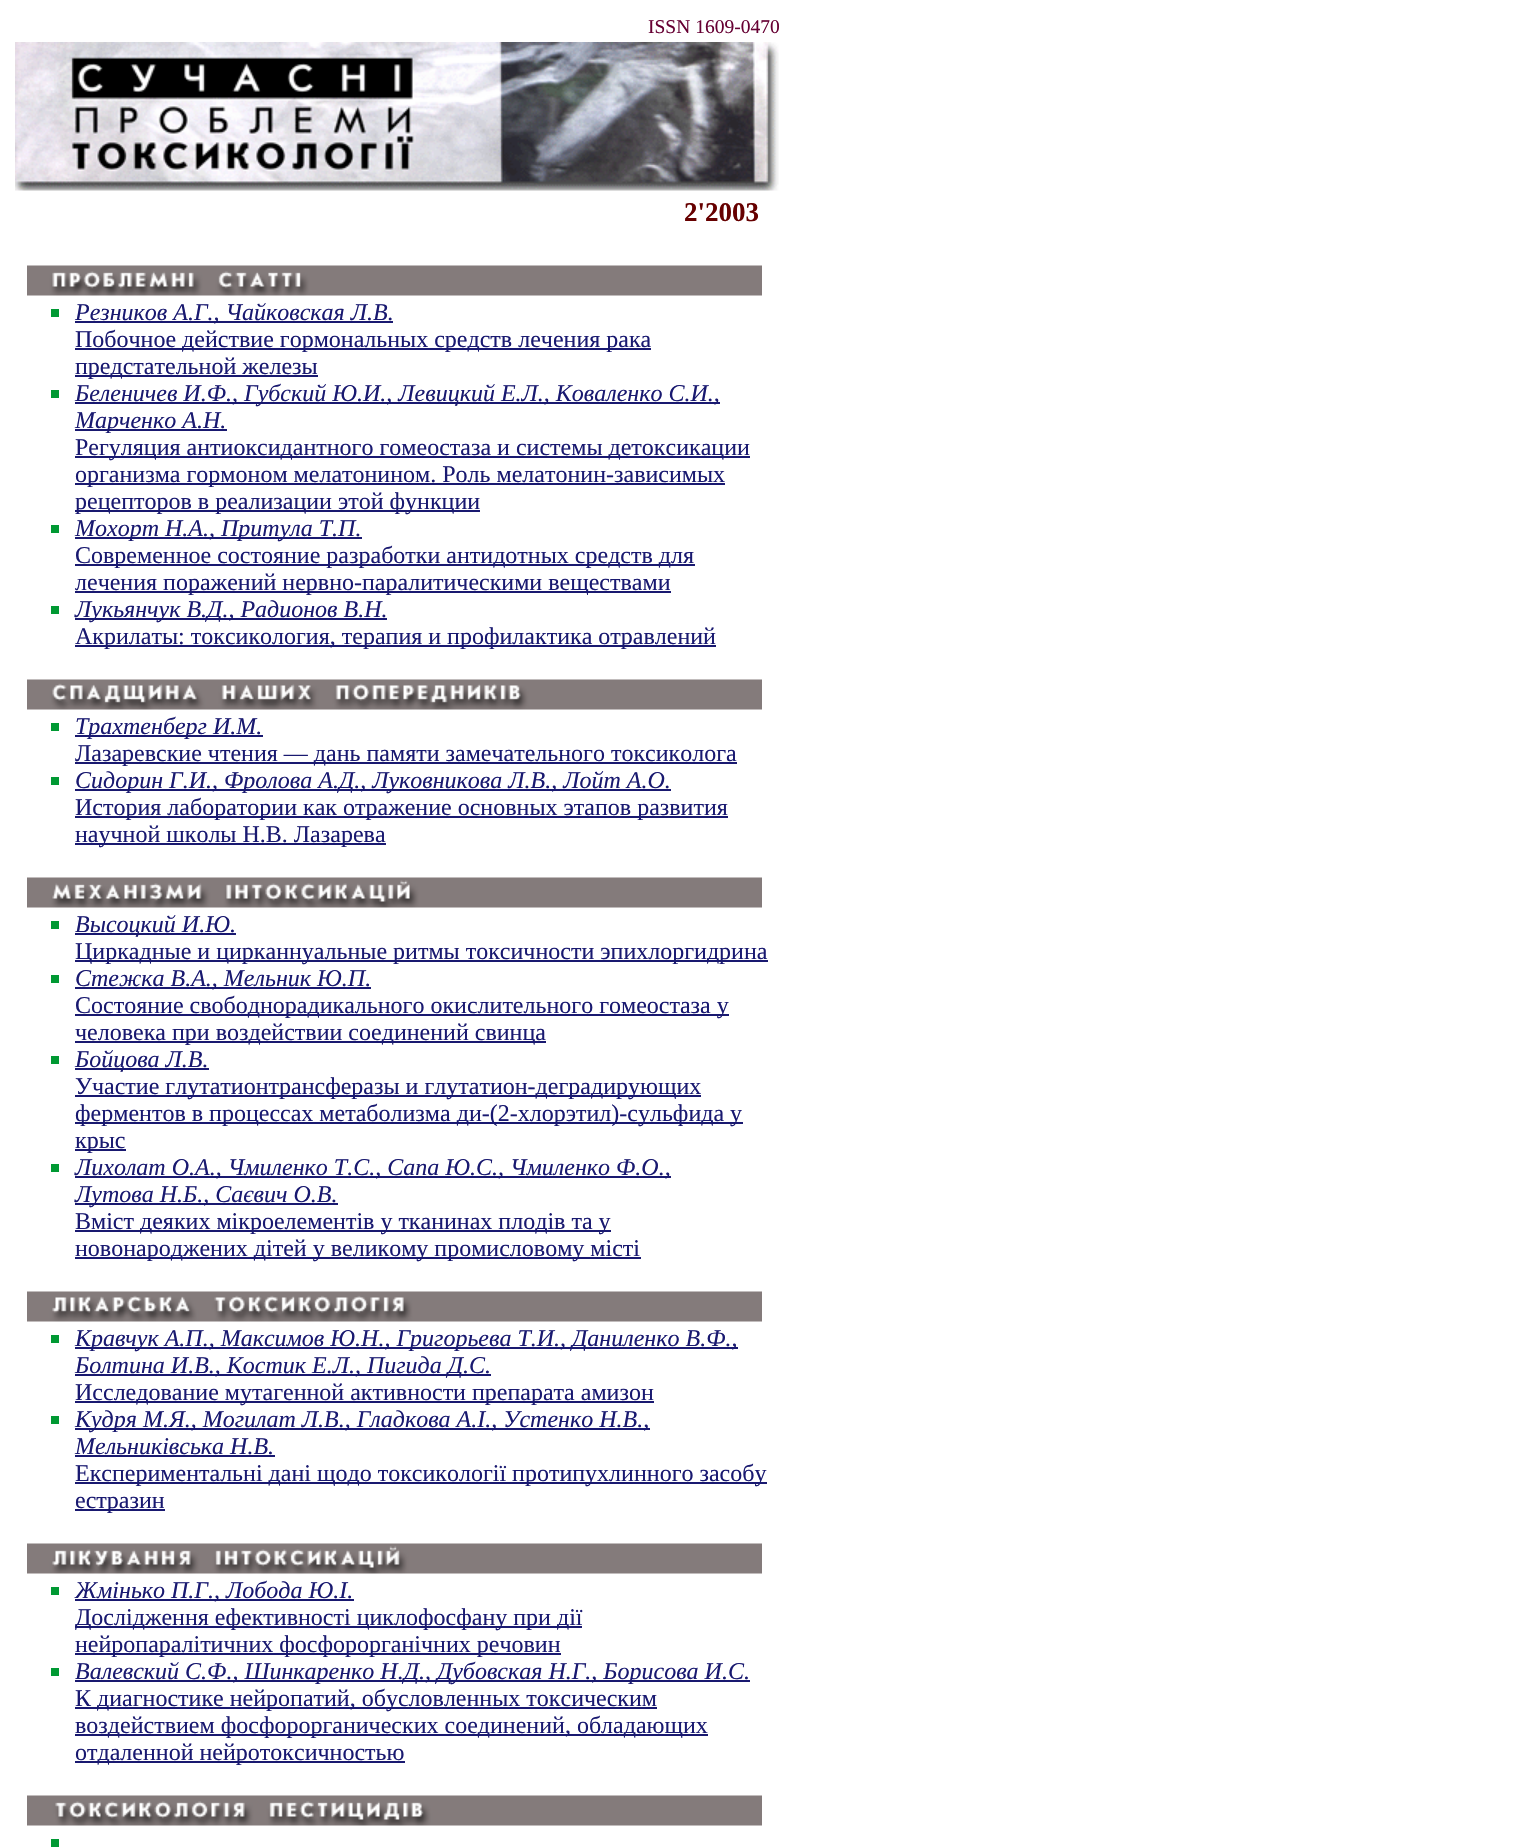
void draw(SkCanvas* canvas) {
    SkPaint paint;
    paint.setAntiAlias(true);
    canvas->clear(0xFFFFFFFF);
    SkFont font1(fontMgr->matchFamilyStyle("Liberation Serif", SkFontStyle::Normal()), 19.5f);
    font1.setSubpixel(true);
    paint.setColor(0xFF660033);
    canvas->drawString("ISSN 1609-0470", 648, 33, font1, paint);
    canvas->drawImageRect(SkImages::DeferredFromEncodedData(SkData::MakeFromFileName("img1.png")), SkRect::MakeXYWH(15, 42, 764, 149), SkSamplingOptions());
    SkFont font2(fontMgr->matchFamilyStyle("Liberation Serif", SkFontStyle::Bold()), 27);
    font2.setSubpixel(true);
    paint.setColor(0xFF660000);
    canvas->drawString("2'2003", 684, 221, font2, paint);
    canvas->drawImageRect(SkImages::DeferredFromEncodedData(SkData::MakeFromFileName("img2.png")), SkRect::MakeXYWH(27, 265, 735, 31), SkSamplingOptions());
    paint.setColor(0xFF009933);
    canvas->drawRect(SkRect::MakeXYWH(51, 309, 8, 8), paint);
    paint.setColor(0xFF191970);
    canvas->drawRect(SkRect::MakeXYWH(75, 321, 318, 2), paint);
    SkFont font3(fontMgr->matchFamilyStyle("Liberation Serif", SkFontStyle::Italic()), 24);
    font3.setSubpixel(true);
    canvas->drawString("Резников А.Г., Чайковская Л.В.", 75, 320, font3, paint);
    canvas->drawRect(SkRect::MakeXYWH(75, 348, 576, 2), paint);
    SkFont font4(fontMgr->matchFamilyStyle("Liberation Serif", SkFontStyle::Normal()), 24);
    font4.setSubpixel(true);
    canvas->drawString("Побочное действие гормональных средств лечения рака", 75, 347, font4, paint);
    canvas->drawRect(SkRect::MakeXYWH(75, 375, 243, 2), paint);
    canvas->drawString("предстательной железы", 75, 374, font4, paint);
    paint.setColor(0xFF009933);
    canvas->drawRect(SkRect::MakeXYWH(51, 390, 8, 8), paint);
    paint.setColor(0xFF191970);
    canvas->drawRect(SkRect::MakeXYWH(75, 402, 645, 2), paint);
    canvas->drawString("Беленичев И.Ф., Губский Ю.И., Левицкий Е.Л., Коваленко С.И.,", 75, 401, font3, paint);
    canvas->drawRect(SkRect::MakeXYWH(75, 429, 152, 2), paint);
    canvas->drawString("Марченко А.Н.", 75, 428, font3, paint);
    canvas->drawRect(SkRect::MakeXYWH(75, 456, 675, 2), paint);
    canvas->drawString("Регуляция антиоксидантного гомеостаза и системы детоксикации", 75, 455, font4, paint);
    canvas->drawRect(SkRect::MakeXYWH(75, 483, 650, 2), paint);
    canvas->drawString("организма гормоном мелатонином. Роль мелатонин-зависимых", 75, 482, font4, paint);
    canvas->drawRect(SkRect::MakeXYWH(75, 510, 405, 2), paint);
    canvas->drawString("рецепторов в реализации этой функции", 75, 509, font4, paint);
    paint.setColor(0xFF009933);
    canvas->drawRect(SkRect::MakeXYWH(51, 525, 8, 8), paint);
    paint.setColor(0xFF191970);
    canvas->drawRect(SkRect::MakeXYWH(75, 537, 287, 2), paint);
    canvas->drawString("Мохорт Н.А., Притула Т.П.", 75, 536, font3, paint);
    canvas->drawRect(SkRect::MakeXYWH(75, 564, 620, 2), paint);
    canvas->drawString("Современное состояние разработки антидотных средств для", 75, 563, font4, paint);
    canvas->drawRect(SkRect::MakeXYWH(75, 591, 596, 2), paint);
    canvas->drawString("лечения поражений нервно-паралитическими веществами", 75, 590, font4, paint);
    paint.setColor(0xFF009933);
    canvas->drawRect(SkRect::MakeXYWH(51, 606, 8, 8), paint);
    paint.setColor(0xFF191970);
    canvas->drawRect(SkRect::MakeXYWH(75, 618, 312, 2), paint);
    canvas->drawString("Лукьянчук В.Д., Радионов В.Н.", 75, 617, font3, paint);
    canvas->drawRect(SkRect::MakeXYWH(75, 645, 641, 2), paint);
    canvas->drawString("Акрилаты: токсикология, терапия и профилактика отравлений", 75, 644, font4, paint);
    canvas->drawImageRect(SkImages::DeferredFromEncodedData(SkData::MakeFromFileName("img3.png")), SkRect::MakeXYWH(27, 679, 735, 31), SkSamplingOptions());
    paint.setColor(0xFF009933);
    canvas->drawRect(SkRect::MakeXYWH(51, 723, 8, 8), paint);
    paint.setColor(0xFF191970);
    canvas->drawRect(SkRect::MakeXYWH(75, 735, 188, 2), paint);
    canvas->drawString("Трахтенберг И.М.", 75, 734, font3, paint);
    canvas->drawRect(SkRect::MakeXYWH(75, 762, 662, 2), paint);
    canvas->drawString("Лазаревские чтения — дань памяти замечательного токсиколога", 75, 761, font4, paint);
    paint.setColor(0xFF009933);
    canvas->drawRect(SkRect::MakeXYWH(51, 777, 8, 8), paint);
    paint.setColor(0xFF191970);
    canvas->drawRect(SkRect::MakeXYWH(75, 789, 596, 2), paint);
    canvas->drawString("Сидорин Г.И., Фролова А.Д., Луковникова Л.В., Лойт А.О.", 75, 788, font3, paint);
    canvas->drawRect(SkRect::MakeXYWH(75, 816, 653, 2), paint);
    canvas->drawString("История лаборатории как отражение основных этапов развития", 75, 815, font4, paint);
    canvas->drawRect(SkRect::MakeXYWH(75, 843, 311, 2), paint);
    canvas->drawString("научной школы Н.В. Лазарева", 75, 842, font4, paint);
    canvas->drawImageRect(SkImages::DeferredFromEncodedData(SkData::MakeFromFileName("img4.png")), SkRect::MakeXYWH(27, 877, 735, 31), SkSamplingOptions());
    paint.setColor(0xFF009933);
    canvas->drawRect(SkRect::MakeXYWH(51, 921, 8, 8), paint);
    paint.setColor(0xFF191970);
    canvas->drawRect(SkRect::MakeXYWH(75, 933, 161, 2), paint);
    canvas->drawString("Высоцкий И.Ю.", 75, 932, font3, paint);
    canvas->drawRect(SkRect::MakeXYWH(75, 960, 693, 2), paint);
    canvas->drawString("Циркадные и цирканнуальные ритмы токсичности эпихлоргидрина", 75, 959, font4, paint);
    paint.setColor(0xFF009933);
    canvas->drawRect(SkRect::MakeXYWH(51, 975, 8, 8), paint);
    paint.setColor(0xFF191970);
    canvas->drawRect(SkRect::MakeXYWH(75, 987, 296, 2), paint);
    canvas->drawString("Стежка В.А., Мельник Ю.П.", 75, 986, font3, paint);
    canvas->drawRect(SkRect::MakeXYWH(75, 1014, 654, 2), paint);
    canvas->drawString("Состояние свободнорадикального окислительного гомеостаза у", 75, 1013, font4, paint);
    canvas->drawRect(SkRect::MakeXYWH(75, 1041, 471, 2), paint);
    canvas->drawString("человека при воздействии соединений свинца", 75, 1040, font4, paint);
    paint.setColor(0xFF009933);
    canvas->drawRect(SkRect::MakeXYWH(51, 1056, 8, 8), paint);
    paint.setColor(0xFF191970);
    canvas->drawRect(SkRect::MakeXYWH(75, 1068, 134, 2), paint);
    canvas->drawString("Бойцова Л.В.", 75, 1067, font3, paint);
    canvas->drawRect(SkRect::MakeXYWH(75, 1095, 626, 2), paint);
    canvas->drawString("Участие глутатионтрансферазы и глутатион-деградирующих", 75, 1094, font4, paint);
    canvas->drawRect(SkRect::MakeXYWH(75, 1122, 668, 2), paint);
    canvas->drawString("ферментов в процессах метаболизма ди-(2-хлорэтил)-сульфида у", 75, 1121, font4, paint);
    canvas->drawRect(SkRect::MakeXYWH(75, 1149, 51, 2), paint);
    canvas->drawString("крыс", 75, 1148, font4, paint);
    paint.setColor(0xFF009933);
    canvas->drawRect(SkRect::MakeXYWH(51, 1164, 8, 8), paint);
    paint.setColor(0xFF191970);
    canvas->drawRect(SkRect::MakeXYWH(75, 1176, 596, 2), paint);
    canvas->drawString("Лихолат О.А., Чмиленко Т.С., Сапа Ю.С., Чмиленко Ф.О.,", 75, 1175, font3, paint);
    canvas->drawRect(SkRect::MakeXYWH(75, 1203, 263, 2), paint);
    canvas->drawString("Лутова Н.Б., Саєвич О.В.", 75, 1202, font3, paint);
    canvas->drawRect(SkRect::MakeXYWH(75, 1230, 536, 2), paint);
    canvas->drawString("Вміст деяких мікроелементів у тканинах плодів та у", 75, 1229, font4, paint);
    canvas->drawRect(SkRect::MakeXYWH(75, 1257, 566, 2), paint);
    canvas->drawString("новонароджених дітей у великому промисловому місті", 75, 1256, font4, paint);
    canvas->drawImageRect(SkImages::DeferredFromEncodedData(SkData::MakeFromFileName("img5.png")), SkRect::MakeXYWH(27, 1291, 735, 31), SkSamplingOptions());
    paint.setColor(0xFF009933);
    canvas->drawRect(SkRect::MakeXYWH(51, 1335, 8, 8), paint);
    paint.setColor(0xFF191970);
    canvas->drawRect(SkRect::MakeXYWH(75, 1347, 663, 2), paint);
    canvas->drawString("Кравчук А.П., Максимов Ю.Н., Григорьева Т.И., Даниленко В.Ф.,", 75, 1346, font3, paint);
    canvas->drawRect(SkRect::MakeXYWH(75, 1374, 416, 2), paint);
    canvas->drawString("Болтина И.В., Костик Е.Л., Пигида Д.С.", 75, 1373, font3, paint);
    canvas->drawRect(SkRect::MakeXYWH(75, 1401, 579, 2), paint);
    canvas->drawString("Исследование мутагенной активности препарата амизон", 75, 1400, font4, paint);
    paint.setColor(0xFF009933);
    canvas->drawRect(SkRect::MakeXYWH(51, 1416, 8, 8), paint);
    paint.setColor(0xFF191970);
    canvas->drawRect(SkRect::MakeXYWH(75, 1428, 575, 2), paint);
    canvas->drawString("Кудря М.Я., Могилат Л.В., Гладкова А.І., Устенко Н.В.,", 75, 1427, font3, paint);
    canvas->drawString("Мельниківська Н.В.", 75, 1454, font3, paint);
    canvas->drawRect(SkRect::MakeXYWH(75, 1455, 200, 2), paint);
    canvas->drawRect(SkRect::MakeXYWH(75, 1482, 692, 2), paint);
    canvas->drawString("Експериментальні дані щодо токсикології протипухлинного засобу", 75, 1481, font4, paint);
    canvas->drawRect(SkRect::MakeXYWH(75, 1509, 90, 2), paint);
    canvas->drawString("естразин", 75, 1508, font4, paint);
    canvas->drawImageRect(SkImages::DeferredFromEncodedData(SkData::MakeFromFileName("img6.png")), SkRect::MakeXYWH(27, 1543, 735, 31), SkSamplingOptions());
    paint.setColor(0xFF009933);
    canvas->drawRect(SkRect::MakeXYWH(51, 1587, 8, 8), paint);
    paint.setColor(0xFF191970);
    canvas->drawRect(SkRect::MakeXYWH(75, 1599, 279, 2), paint);
    canvas->drawString("Жмінько П.Г., Лобода Ю.І.", 75, 1598, font3, paint);
    canvas->drawRect(SkRect::MakeXYWH(75, 1626, 507, 2), paint);
    canvas->drawString("Дослідження ефективності циклофосфану при дії", 75, 1625, font4, paint);
    canvas->drawRect(SkRect::MakeXYWH(75, 1653, 486, 2), paint);
    canvas->drawString("нейропаралітичних фосфорорганічних речовин", 75, 1652, font4, paint);
    paint.setColor(0xFF009933);
    canvas->drawRect(SkRect::MakeXYWH(51, 1668, 8, 8), paint);
    paint.setColor(0xFF191970);
    canvas->drawRect(SkRect::MakeXYWH(75, 1680, 675, 2), paint);
    canvas->drawString("Валевский С.Ф., Шинкаренко Н.Д., Дубовская Н.Г., Борисова И.С.", 75, 1679, font3, paint);
    canvas->drawRect(SkRect::MakeXYWH(75, 1707, 582, 2), paint);
    canvas->drawString("К диагностике нейропатий, обусловленных токсическим", 75, 1706, font4, paint);
    canvas->drawRect(SkRect::MakeXYWH(75, 1734, 633, 2), paint);
    canvas->drawString("воздействием фосфорорганических соединений, обладающих", 75, 1733, font4, paint);
    canvas->drawRect(SkRect::MakeXYWH(75, 1761, 330, 2), paint);
    canvas->drawString("отдаленной нейротоксичностью", 75, 1760, font4, paint);
    canvas->drawImageRect(SkImages::DeferredFromEncodedData(SkData::MakeFromFileName("img7.png")), SkRect::MakeXYWH(27, 1795, 735, 31), SkSamplingOptions());
    paint.setColor(0xFF009933);
    canvas->drawRect(SkRect::MakeXYWH(51, 1839, 8, 8), paint);
}
